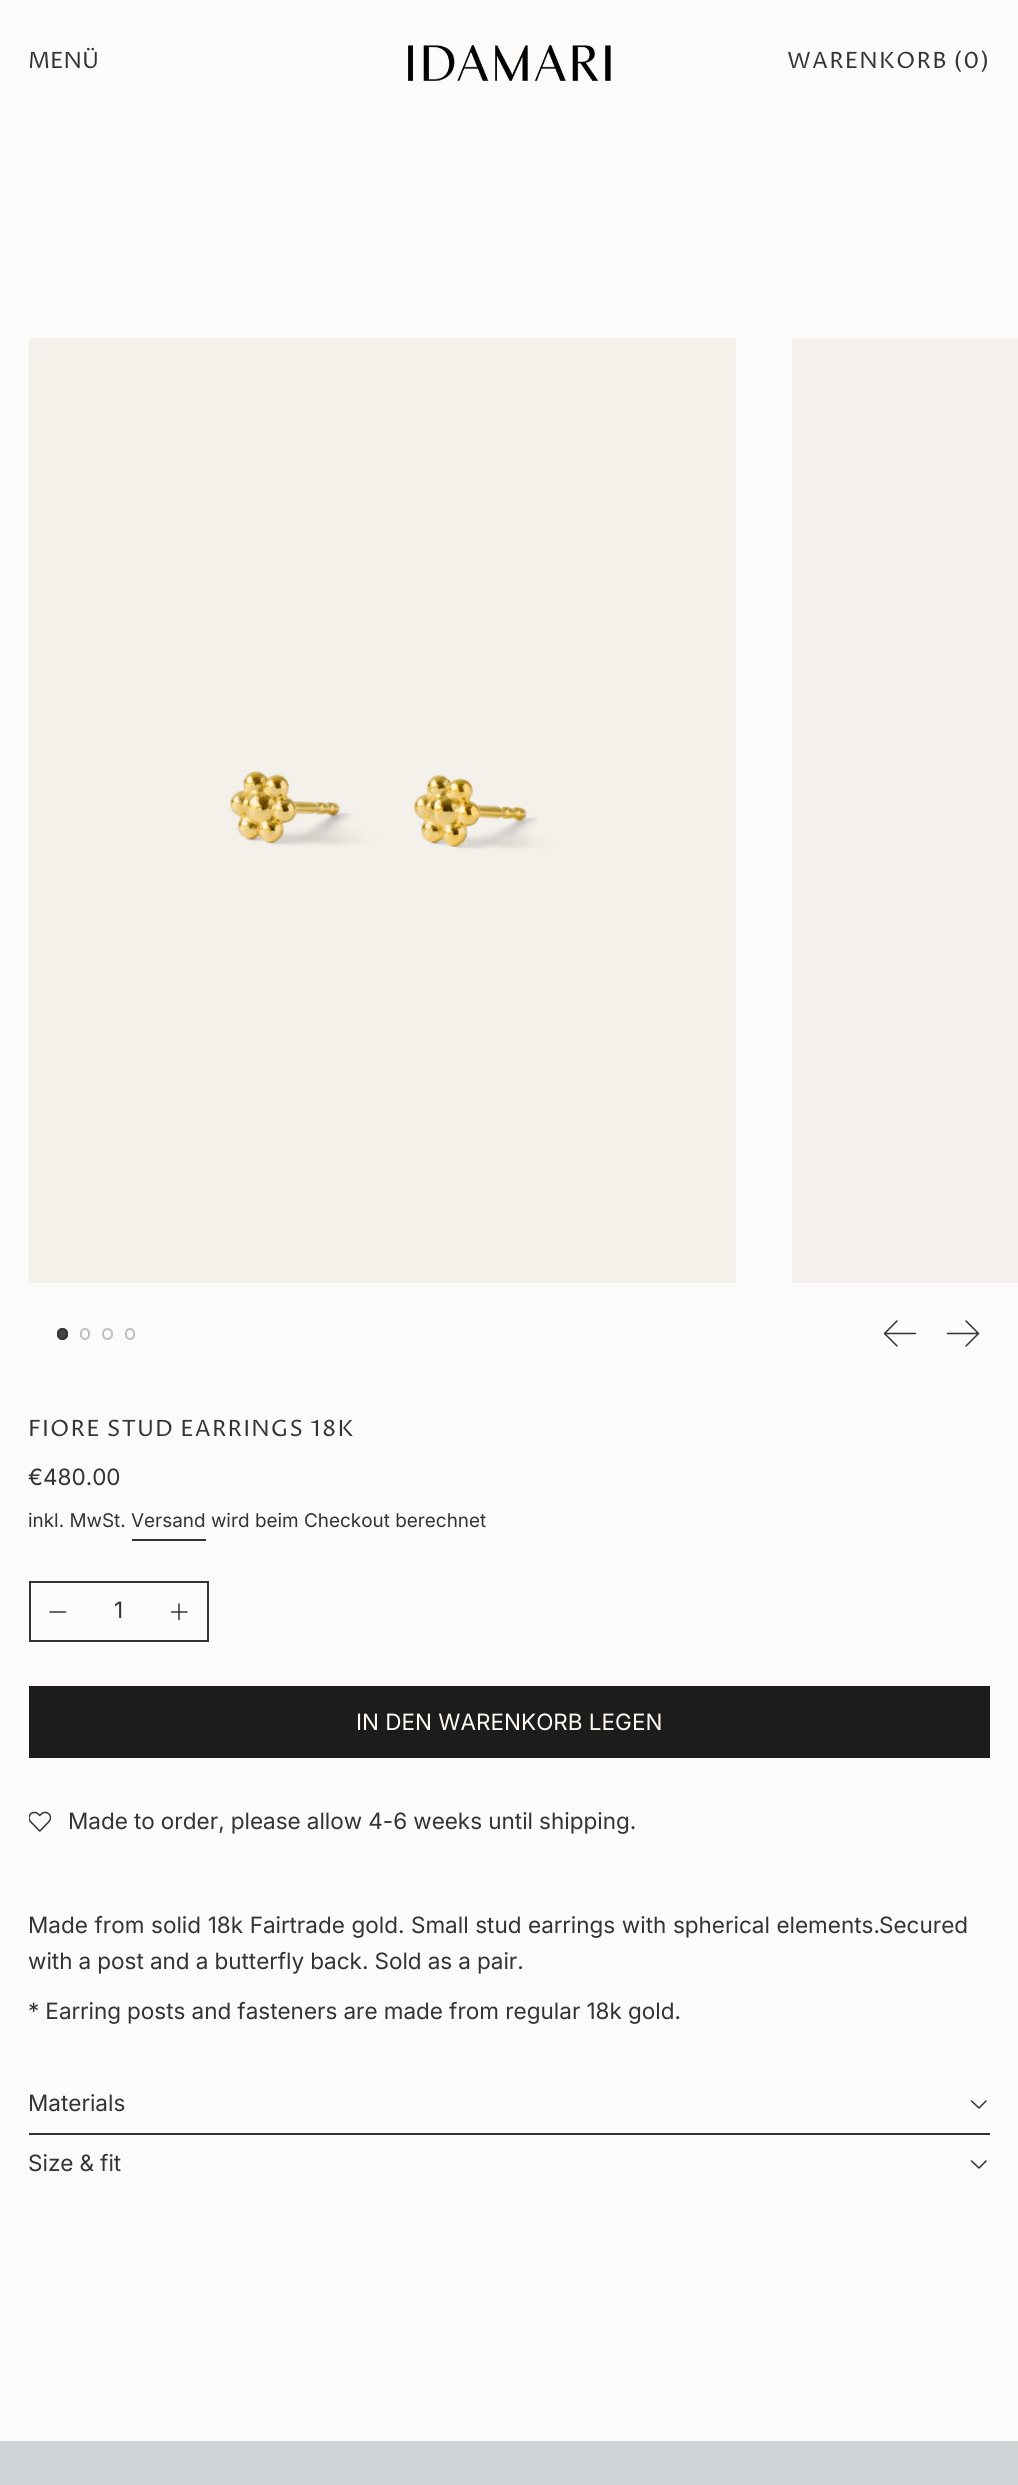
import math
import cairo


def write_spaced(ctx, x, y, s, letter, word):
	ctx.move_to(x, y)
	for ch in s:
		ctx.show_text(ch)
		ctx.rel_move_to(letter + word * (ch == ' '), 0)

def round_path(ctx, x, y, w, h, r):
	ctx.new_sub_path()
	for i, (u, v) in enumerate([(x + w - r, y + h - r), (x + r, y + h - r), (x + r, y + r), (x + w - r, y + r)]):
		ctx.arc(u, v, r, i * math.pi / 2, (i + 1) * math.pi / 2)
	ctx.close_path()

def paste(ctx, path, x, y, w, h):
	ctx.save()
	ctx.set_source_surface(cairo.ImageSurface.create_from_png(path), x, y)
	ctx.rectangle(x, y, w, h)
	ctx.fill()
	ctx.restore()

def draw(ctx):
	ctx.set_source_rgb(0.988, 0.984, 0.976)
	ctx.paint()
	ctx.select_font_face('Proza Libre')
	ctx.set_font_size(22.5)
	ctx.set_source_rgb(0.2, 0.2, 0.2)
	ctx.move_to(28, 68)
	ctx.show_text('MENÜ')
	paste(ctx, 'media/1.png', 408, 45, 203, 36)
	write_spaced(ctx, 787, 68, 'WARENKORB (0)', 1.1, 0)
	paste(ctx, 'media/2.png', 28, 338, 709, 945)
	ctx.set_source_rgb(0.961, 0.945, 0.933)
	ctx.rectangle(792, 338, 226, 945)
	ctx.fill()
	ctx.set_source_rgb(0.278, 0.278, 0.278)
	round_path(ctx, 57, 1328, 11, 12, 5.5)
	ctx.fill()
	round_path(ctx, 58, 1329, 9, 10, 4.5)
	ctx.set_source_rgba(0.2, 0.2, 0.2, 0.9)
	ctx.stroke()
	round_path(ctx, 81, 1329, 8, 10, 4)
	ctx.set_source_rgb(0.753, 0.749, 0.745)
	ctx.stroke()
	round_path(ctx, 103, 1329, 9, 10, 4.5)
	ctx.stroke()
	round_path(ctx, 126, 1329, 8, 10, 4)
	ctx.stroke()
	ctx.new_path()
	ctx.move_to(915.5, 1333.5)
	ctx.line_to(884.5, 1333.5)
	ctx.move_to(897, 1321)
	ctx.line_to(884.5, 1333.5)
	ctx.line_to(897, 1346)
	ctx.set_source_rgb(0.2, 0.2, 0.2)
	ctx.set_line_width(1.5)
	ctx.set_line_cap(cairo.LINE_CAP_ROUND)
	ctx.set_line_join(cairo.LINE_JOIN_ROUND)
	ctx.stroke()
	ctx.new_path()
	ctx.move_to(947.5, 1333.5)
	ctx.line_to(978.5, 1333.5)
	ctx.move_to(966, 1321)
	ctx.line_to(978.5, 1333.5)
	ctx.line_to(966, 1346)
	ctx.stroke()
	write_spaced(ctx, 28, 1436, 'FIORE STUD EARRINGS 18K', 1.1, 0)
	ctx.select_font_face('Inter')
	ctx.move_to(28, 1485)
	ctx.show_text('€480.00')
	ctx.set_font_size(18.9)
	ctx.move_to(28, 1527)
	ctx.show_text('inkl. MwSt. Versand wird beim Checkout berechnet')
	ctx.rectangle(132, 1539, 74, 2)
	ctx.rectangle(29, 1581, 180, 2)
	ctx.rectangle(29, 1640, 121, 2)
	ctx.rectangle(29, 1581, 2, 60)
	ctx.fill()
	ctx.new_path()
	ctx.move_to(50, 1612)
	ctx.line_to(65.5, 1612)
	ctx.stroke()
	ctx.set_font_size(22.5)
	ctx.move_to(114, 1618)
	ctx.show_text('1')
	ctx.rectangle(207, 1581, 2, 60)
	ctx.fill()
	ctx.rectangle(150, 1640, 59, 2)
	ctx.fill()
	ctx.new_path()
	ctx.move_to(171.5, 1612)
	ctx.line_to(187, 1612)
	ctx.move_to(179, 1604)
	ctx.line_to(179, 1619.5)
	ctx.stroke()
	ctx.set_source_rgb(0.11, 0.11, 0.11)
	ctx.rectangle(29, 1686, 961, 72)
	ctx.fill()
	ctx.set_source_rgb(1, 0.98, 0.949)
	ctx.move_to(356, 1730)
	ctx.show_text('IN DEN WARENKORB LEGEN')
	paste(ctx, 'media/3.png', 29, 1811, 22, 21)
	ctx.set_source_rgb(0.2, 0.2, 0.2)
	write_spaced(ctx, 68, 1829, 'Made to order, please allow 4-6 weeks until shipping.', 0, -0.25)
	write_spaced(ctx, 28, 1933, 'Made from solid 18k Fairtrade gold. Small stud earrings with spherical elements.', 0, 0.25)
	ctx.move_to(879, 1933)
	ctx.show_text('Secured')
	write_spaced(ctx, 28, 1969, 'with a post and a butterfly back. Sold as a pair.', 0, -0.25)
	write_spaced(ctx, 28, 2019, '* Earring posts and fasteners are made from regular 18k gold.', 0, -0.25)
	ctx.move_to(28, 2111)
	ctx.show_text('Materials')
	ctx.new_path()
	ctx.move_to(986, 2101)
	ctx.line_to(979, 2108)
	ctx.line_to(971.5, 2101)
	ctx.stroke()
	ctx.rectangle(29, 2133, 961, 2)
	ctx.fill()
	write_spaced(ctx, 28, 2171, 'Size & fit', 0, -0.25)
	ctx.new_path()
	ctx.move_to(986, 2161)
	ctx.line_to(979, 2168)
	ctx.line_to(971.5, 2161)
	ctx.stroke()
	ctx.set_source_rgb(0.82, 0.835, 0.847)
	ctx.rectangle(0, 2441, 1018, 44)
	ctx.fill()


surface = cairo.ImageSurface(cairo.FORMAT_RGB24, 1018, 2485)
ctx = cairo.Context(surface)
options = cairo.FontOptions()
options.set_hint_metrics(cairo.HINT_METRICS_OFF)
options.set_hint_style(cairo.HINT_STYLE_NONE)
ctx.set_font_options(options)
ctx.set_miter_limit(4)
draw(ctx)
surface.write_to_png('image.png')
